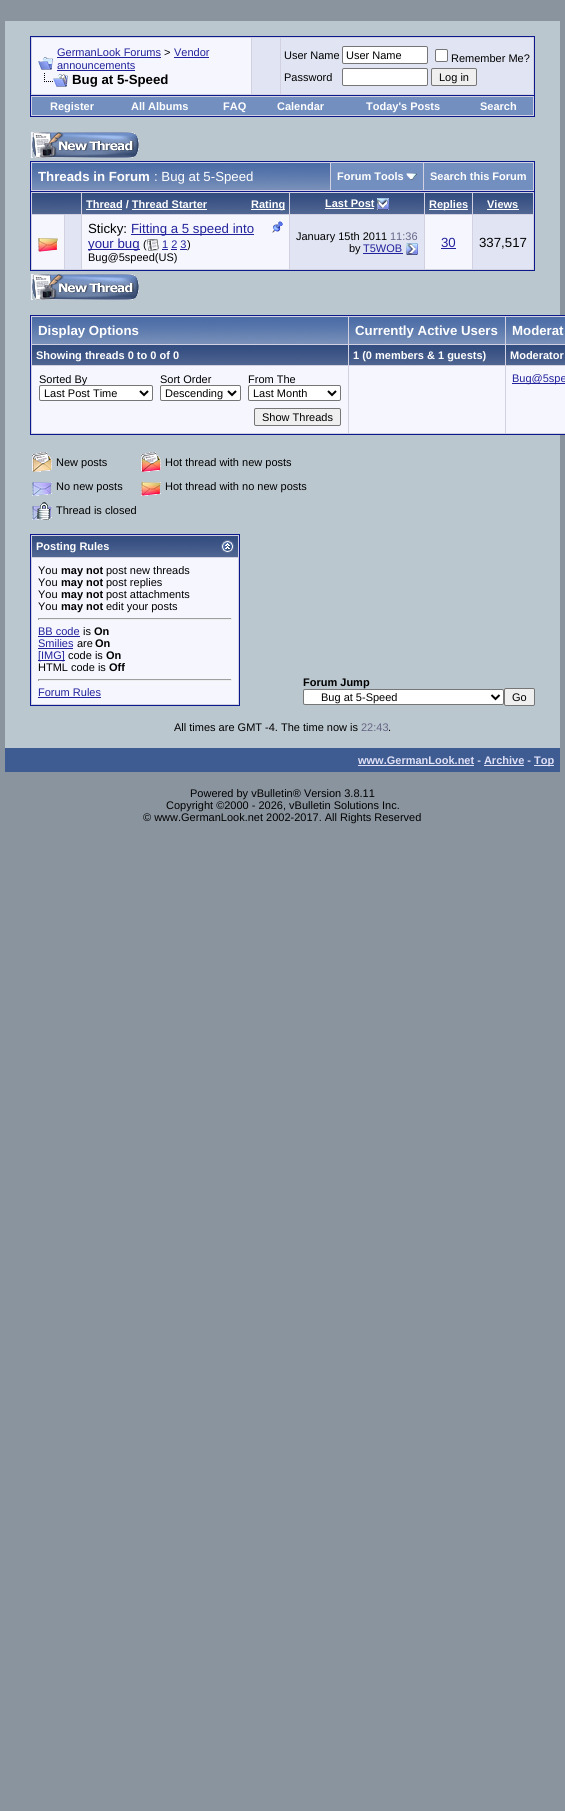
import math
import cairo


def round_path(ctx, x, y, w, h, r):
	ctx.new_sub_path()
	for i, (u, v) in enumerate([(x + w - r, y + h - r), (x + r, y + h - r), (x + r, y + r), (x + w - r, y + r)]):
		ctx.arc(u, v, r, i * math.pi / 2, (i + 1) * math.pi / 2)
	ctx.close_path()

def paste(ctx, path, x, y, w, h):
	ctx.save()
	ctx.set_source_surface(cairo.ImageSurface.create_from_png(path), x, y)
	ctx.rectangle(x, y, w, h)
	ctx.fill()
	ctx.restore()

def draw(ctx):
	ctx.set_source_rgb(0.541, 0.58, 0.62)
	ctx.paint()
	ctx.set_source_rgb(0.733, 0.78, 0.808)
	ctx.rectangle(5, 21, 555, 727)
	ctx.fill()
	ctx.set_source_rgb(0.82, 0.82, 0.882)
	ctx.rectangle(30.5, 36.5, 504, 59)
	ctx.fill_preserve()
	ctx.set_source_rgb(0.043, 0.098, 0.549)
	ctx.set_line_width(1)
	ctx.stroke()
	ctx.set_source_rgb(0.961, 0.961, 1)
	ctx.rectangle(32, 38, 219, 56)
	ctx.fill()
	paste(ctx, 'media/1.png', 38, 57, 15, 13)
	ctx.select_font_face('Liberation Sans')
	ctx.set_font_size(11)
	ctx.set_source_rgb(0.133, 0.133, 0.612)
	ctx.move_to(57, 56)
	ctx.show_text('GermanLook Forums')
	ctx.rectangle(57, 57, 104, 1)
	ctx.fill()
	ctx.set_source_rgb(0, 0, 0)
	ctx.move_to(164, 56)
	ctx.show_text('>')
	ctx.set_source_rgb(0.133, 0.133, 0.612)
	ctx.move_to(174, 56)
	ctx.show_text('Vendor')
	ctx.rectangle(174, 57, 35, 1)
	ctx.fill()
	ctx.move_to(57, 69)
	ctx.show_text('announcements')
	ctx.rectangle(57, 70, 78, 1)
	ctx.fill()
	paste(ctx, 'media/2.png', 44, 73, 24, 14)
	ctx.select_font_face('Liberation Sans', cairo.FONT_SLANT_NORMAL, cairo.FONT_WEIGHT_BOLD)
	ctx.set_font_size(13.25)
	ctx.set_source_rgb(0, 0, 0)
	ctx.move_to(72, 84)
	ctx.show_text('Bug at 5-Speed')
	ctx.set_source_rgb(0.882, 0.894, 0.949)
	ctx.rectangle(252, 38, 28, 56)
	ctx.fill()
	ctx.rectangle(281, 38, 252, 56)
	ctx.fill()
	ctx.select_font_face('Liberation Sans')
	ctx.set_font_size(11)
	ctx.set_source_rgb(0, 0, 0)
	ctx.move_to(284, 59)
	ctx.show_text('User Name')
	ctx.set_source_rgb(1, 1, 1)
	round_path(ctx, 342.5, 46.5, 85, 17, 1.5)
	ctx.fill_preserve()
	ctx.set_source_rgb(0.463, 0.463, 0.463)
	ctx.stroke()
	ctx.set_source_rgb(0, 0, 0)
	ctx.move_to(346, 59)
	ctx.show_text('User Name')
	ctx.set_source_rgb(1, 1, 1)
	round_path(ctx, 435.5, 49.5, 12, 12, 1.5)
	ctx.fill_preserve()
	ctx.set_source_rgb(0.463, 0.463, 0.463)
	ctx.stroke()
	ctx.set_source_rgb(0, 0, 0)
	ctx.move_to(451, 62)
	ctx.show_text('Remember Me?')
	ctx.move_to(284, 81)
	ctx.show_text('Password')
	ctx.set_source_rgb(1, 1, 1)
	round_path(ctx, 342.5, 68.5, 85, 17, 1.5)
	ctx.fill_preserve()
	ctx.set_source_rgb(0.463, 0.463, 0.463)
	ctx.stroke()
	ctx.set_source_rgb(0.937, 0.937, 0.937)
	round_path(ctx, 431.5, 68.5, 45, 17, 1.5)
	ctx.fill_preserve()
	ctx.set_source_rgb(0.463, 0.463, 0.463)
	ctx.stroke()
	ctx.set_source_rgb(0, 0, 0)
	ctx.move_to(439, 81)
	ctx.show_text('Log in')
	ctx.set_source_rgb(0.82, 0.82, 0.882)
	ctx.rectangle(31, 96, 503, 20)
	ctx.fill()
	ctx.set_source_rgb(0.043, 0.098, 0.549)
	ctx.rectangle(534, 96, 1, 21)
	ctx.rectangle(30, 116, 505, 1)
	ctx.rectangle(30, 96, 1, 21)
	ctx.fill()
	ctx.set_source_rgb(0.451, 0.561, 0.749)
	ctx.rectangle(32, 97, 501, 18)
	ctx.fill()
	ctx.select_font_face('Liberation Sans', cairo.FONT_SLANT_NORMAL, cairo.FONT_WEIGHT_BOLD)
	ctx.set_source_rgb(1, 1, 1)
	for x, y, s in [
		(50, 110, 'Register'),
		(131, 110, 'All Albums'),
		(223, 110, 'FAQ'),
		(277, 110, 'Calendar'),
		(366, 110, 'Today\'s Posts'),
		(480, 110, 'Search'),
	]:
		ctx.move_to(x, y)
		ctx.show_text(s)
	paste(ctx, 'media/3.png', 31, 132, 108, 26)
	ctx.set_source_rgb(0.82, 0.82, 0.882)
	ctx.rectangle(31, 162, 503, 29)
	ctx.fill()
	ctx.set_source_rgb(0.043, 0.098, 0.549)
	ctx.rectangle(30, 161, 505, 1)
	ctx.rectangle(534, 161, 1, 30)
	ctx.rectangle(30, 161, 1, 30)
	ctx.fill()
	paste(ctx, 'media/4.png', 32, 163, 298, 27)
	ctx.set_font_size(13.25)
	ctx.set_source_rgb(1, 1, 1)
	ctx.move_to(38, 181)
	ctx.show_text('Threads in Forum')
	ctx.select_font_face('Liberation Sans')
	ctx.move_to(154, 181)
	ctx.show_text(': Bug at 5-Speed')
	ctx.set_source_rgb(0.451, 0.561, 0.749)
	ctx.rectangle(331, 163, 92, 27)
	ctx.fill()
	ctx.select_font_face('Liberation Sans', cairo.FONT_SLANT_NORMAL, cairo.FONT_WEIGHT_BOLD)
	ctx.set_font_size(11)
	ctx.set_source_rgb(1, 1, 1)
	ctx.move_to(337, 180)
	ctx.show_text('Forum Tools')
	paste(ctx, 'media/5.png', 406, 173, 11, 7)
	ctx.set_source_rgb(0.451, 0.561, 0.749)
	ctx.rectangle(424, 163, 109, 27)
	ctx.fill()
	ctx.set_source_rgb(1, 1, 1)
	ctx.move_to(430, 180)
	ctx.show_text('Search this Forum')
	ctx.set_source_rgb(0.82, 0.82, 0.882)
	ctx.rectangle(30.5, 191.5, 504, 79)
	ctx.fill_preserve()
	ctx.set_source_rgb(0.043, 0.098, 0.549)
	ctx.stroke()
	paste(ctx, 'media/6.png', 32, 193, 49, 21)
	paste(ctx, 'media/7.png', 82, 193, 207, 21)
	ctx.set_source_rgb(1, 1, 1)
	ctx.move_to(86, 208)
	ctx.show_text('Thread / Thread Starter')
	ctx.rectangle(86, 209, 36, 1)
	ctx.fill()
	ctx.rectangle(251, 209, 34, 1)
	ctx.fill()
	ctx.move_to(251, 208)
	ctx.show_text('Rating')
	ctx.rectangle(132, 209, 75, 1)
	ctx.fill()
	paste(ctx, 'media/8.png', 290, 193, 134, 21)
	ctx.move_to(325, 207)
	ctx.show_text('Last Post')
	ctx.rectangle(325, 208, 49, 1)
	ctx.fill()
	paste(ctx, 'media/9.png', 377, 198, 12, 12)
	paste(ctx, 'media/10.png', 425, 193, 47, 21)
	ctx.rectangle(429, 209, 39, 1)
	ctx.fill()
	ctx.move_to(429, 208)
	ctx.show_text('Replies')
	paste(ctx, 'media/11.png', 473, 193, 60, 21)
	ctx.move_to(487, 208)
	ctx.show_text('Views')
	ctx.rectangle(487, 209, 32, 1)
	ctx.fill()
	ctx.set_source_rgb(0.961, 0.961, 1)
	ctx.rectangle(32, 215, 32, 54)
	ctx.fill()
	paste(ctx, 'media/12.png', 38, 238, 20, 14)
	ctx.set_source_rgb(0.882, 0.894, 0.949)
	ctx.rectangle(65, 215, 16, 54)
	ctx.fill()
	ctx.set_source_rgb(0.961, 0.961, 1)
	ctx.rectangle(82, 215, 207, 54)
	ctx.fill()
	ctx.select_font_face('Liberation Sans')
	ctx.set_font_size(13.25)
	ctx.set_source_rgb(0, 0, 0)
	ctx.move_to(88, 233)
	ctx.show_text('Sticky:')
	ctx.set_source_rgb(0.133, 0.133, 0.612)
	ctx.rectangle(131, 234, 123, 1)
	ctx.fill()
	ctx.move_to(131, 233)
	ctx.show_text('Fitting a 5 speed into')
	paste(ctx, 'media/13.png', 272, 221, 11, 12)
	ctx.rectangle(88, 249, 52, 1)
	ctx.fill()
	ctx.move_to(88, 248)
	ctx.show_text('your bug')
	ctx.set_font_size(11)
	ctx.set_source_rgb(0, 0, 0)
	ctx.move_to(143, 248)
	ctx.show_text('(')
	paste(ctx, 'media/14.png', 147, 239, 12, 12)
	ctx.set_source_rgb(0.133, 0.133, 0.612)
	ctx.move_to(162, 248)
	ctx.show_text('1 2 3')
	ctx.rectangle(162, 249, 6, 1)
	ctx.rectangle(171, 249, 6, 1)
	ctx.rectangle(180, 249, 7, 1)
	ctx.fill()
	ctx.set_source_rgb(0, 0, 0)
	ctx.move_to(187, 248)
	ctx.show_text(')')
	ctx.move_to(88, 261)
	ctx.show_text('Bug@5speed(US)')
	ctx.set_source_rgb(0.882, 0.894, 0.949)
	ctx.rectangle(290, 215, 134, 54)
	ctx.fill()
	ctx.set_source_rgb(0, 0, 0)
	ctx.move_to(296, 240)
	ctx.show_text('January 15th 2011')
	ctx.set_source_rgb(0.4, 0.4, 0.525)
	ctx.move_to(390, 240)
	ctx.show_text('11:36')
	ctx.set_source_rgb(0, 0, 0)
	ctx.move_to(349, 252)
	ctx.show_text('by')
	ctx.set_source_rgb(0.133, 0.133, 0.612)
	ctx.move_to(363, 252)
	ctx.show_text('T5WOB')
	ctx.rectangle(363, 253, 40, 1)
	ctx.fill()
	paste(ctx, 'media/15.png', 406, 243, 12, 12)
	ctx.set_source_rgb(0.961, 0.961, 1)
	ctx.rectangle(425, 215, 47, 54)
	ctx.fill()
	ctx.set_font_size(13.25)
	ctx.set_source_rgb(0.133, 0.133, 0.612)
	ctx.move_to(441, 247)
	ctx.show_text('30')
	ctx.rectangle(441, 248, 15, 1)
	ctx.fill()
	ctx.set_source_rgb(0.882, 0.894, 0.949)
	ctx.rectangle(473, 215, 60, 54)
	ctx.fill()
	ctx.set_source_rgb(0, 0, 0)
	ctx.move_to(479, 247)
	ctx.show_text('337,517')
	paste(ctx, 'media/3.png', 31, 274, 108, 26)
	ctx.set_source_rgb(0.82, 0.82, 0.882)
	ctx.rectangle(30.5, 315.5, 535, 119)
	ctx.fill_preserve()
	ctx.set_source_rgb(0.043, 0.098, 0.549)
	ctx.stroke()
	paste(ctx, 'media/16.png', 32, 317, 316, 27)
	ctx.select_font_face('Liberation Sans', cairo.FONT_SLANT_NORMAL, cairo.FONT_WEIGHT_BOLD)
	ctx.set_source_rgb(1, 1, 1)
	ctx.move_to(38, 335)
	ctx.show_text('Display Options')
	paste(ctx, 'media/17.png', 349, 317, 156, 27)
	ctx.move_to(355, 335)
	ctx.show_text('Currently Active Users')
	paste(ctx, 'media/18.png', 506, 317, 59, 27)
	ctx.move_to(512, 335)
	ctx.show_text('Moderat')
	paste(ctx, 'media/19.png', 32, 345, 316, 20)
	ctx.set_font_size(11)
	ctx.move_to(36, 359)
	ctx.show_text('Showing threads 0 to 0 of 0')
	paste(ctx, 'media/20.png', 349, 345, 156, 20)
	ctx.move_to(353, 359)
	ctx.show_text('1 (0 members & 1 guests)')
	paste(ctx, 'media/21.png', 506, 345, 59, 20)
	ctx.move_to(510, 359)
	ctx.show_text('Moderator')
	ctx.set_source_rgb(0.961, 0.961, 1)
	ctx.rectangle(32, 366, 316, 67)
	ctx.fill()
	ctx.select_font_face('Liberation Sans')
	ctx.set_source_rgb(0, 0, 0)
	ctx.move_to(39, 383)
	ctx.show_text('Sorted By')
	ctx.set_source_rgb(1, 1, 1)
	round_path(ctx, 39.5, 385.5, 113, 15, 1.5)
	ctx.fill_preserve()
	ctx.set_source_rgb(0.463, 0.463, 0.463)
	ctx.stroke()
	ctx.new_path()
	ctx.move_to(140, 391)
	ctx.line_to(144, 395)
	ctx.line_to(148, 391)
	ctx.set_source_rgb(0, 0, 0)
	ctx.set_line_width(2)
	ctx.stroke()
	ctx.move_to(44, 397)
	ctx.show_text('Last Post Time')
	ctx.move_to(160, 383)
	ctx.show_text('Sort Order')
	ctx.set_source_rgb(1, 1, 1)
	round_path(ctx, 160.5, 385.5, 80, 15, 1.5)
	ctx.fill_preserve()
	ctx.set_source_rgb(0.463, 0.463, 0.463)
	ctx.set_line_width(1)
	ctx.stroke()
	ctx.new_path()
	ctx.move_to(228, 391)
	ctx.line_to(232, 395)
	ctx.line_to(236, 391)
	ctx.set_source_rgb(0, 0, 0)
	ctx.set_line_width(2)
	ctx.stroke()
	ctx.move_to(165, 397)
	ctx.show_text('Descending')
	ctx.move_to(248, 383)
	ctx.show_text('From The')
	ctx.set_source_rgb(1, 1, 1)
	round_path(ctx, 248.5, 385.5, 92, 15, 1.5)
	ctx.fill_preserve()
	ctx.set_source_rgb(0.463, 0.463, 0.463)
	ctx.set_line_width(1)
	ctx.stroke()
	ctx.new_path()
	ctx.move_to(328, 391)
	ctx.line_to(332, 395)
	ctx.line_to(336, 391)
	ctx.set_source_rgb(0, 0, 0)
	ctx.set_line_width(2)
	ctx.stroke()
	ctx.move_to(253, 397)
	ctx.show_text('Last Month')
	ctx.set_source_rgb(0.937, 0.937, 0.937)
	round_path(ctx, 254.5, 408.5, 86, 17, 1.5)
	ctx.fill_preserve()
	ctx.set_source_rgb(0.463, 0.463, 0.463)
	ctx.set_line_width(1)
	ctx.stroke()
	ctx.set_source_rgb(0, 0, 0)
	ctx.move_to(262, 421)
	ctx.show_text('Show Threads')
	ctx.set_source_rgb(0.961, 0.961, 1)
	ctx.rectangle(349, 366, 156, 67)
	ctx.rectangle(506, 366, 59, 67)
	ctx.fill()
	ctx.set_source_rgb(0.133, 0.133, 0.612)
	ctx.rectangle(512, 383, 53, 1)
	ctx.fill()
	ctx.move_to(512, 382)
	ctx.show_text('Bug@5spe')
	paste(ctx, 'media/22.png', 32, 452, 20, 20)
	ctx.set_source_rgb(0, 0, 0)
	ctx.move_to(56, 466)
	ctx.show_text('New posts')
	paste(ctx, 'media/23.png', 141, 452, 20, 20)
	ctx.move_to(165, 466)
	ctx.show_text('Hot thread with new posts')
	paste(ctx, 'media/24.png', 32, 482, 20, 14)
	ctx.move_to(56, 490)
	ctx.show_text('No new posts')
	paste(ctx, 'media/25.png', 141, 482, 20, 14)
	ctx.move_to(165, 490)
	ctx.show_text('Hot thread with no new posts')
	paste(ctx, 'media/26.png', 32, 502, 20, 18)
	ctx.move_to(56, 514)
	ctx.show_text('Thread is closed')
	ctx.set_source_rgb(0.82, 0.82, 0.882)
	ctx.rectangle(30.5, 534.5, 209, 171)
	ctx.fill_preserve()
	ctx.set_source_rgb(0.043, 0.098, 0.549)
	ctx.stroke()
	paste(ctx, 'media/27.png', 32, 536, 206, 21)
	ctx.select_font_face('Liberation Sans', cairo.FONT_SLANT_NORMAL, cairo.FONT_WEIGHT_BOLD)
	ctx.set_source_rgb(1, 1, 1)
	ctx.move_to(36, 550)
	ctx.show_text('Posting Rules')
	paste(ctx, 'media/28.png', 221, 540, 13, 13)
	ctx.set_source_rgb(0.961, 0.961, 1)
	ctx.rectangle(32, 558, 206, 146)
	ctx.fill()
	ctx.select_font_face('Liberation Sans')
	ctx.set_source_rgb(0, 0, 0)
	ctx.move_to(38, 574)
	ctx.show_text('You')
	ctx.select_font_face('Liberation Sans', cairo.FONT_SLANT_NORMAL, cairo.FONT_WEIGHT_BOLD)
	ctx.move_to(61, 574)
	ctx.show_text('may not')
	ctx.select_font_face('Liberation Sans')
	ctx.move_to(106, 574)
	ctx.show_text('post new threads')
	ctx.move_to(38, 586)
	ctx.show_text('You')
	ctx.select_font_face('Liberation Sans', cairo.FONT_SLANT_NORMAL, cairo.FONT_WEIGHT_BOLD)
	ctx.move_to(61, 586)
	ctx.show_text('may not')
	ctx.select_font_face('Liberation Sans')
	ctx.move_to(106, 586)
	ctx.show_text('post replies')
	ctx.move_to(38, 598)
	ctx.show_text('You')
	ctx.select_font_face('Liberation Sans', cairo.FONT_SLANT_NORMAL, cairo.FONT_WEIGHT_BOLD)
	ctx.move_to(61, 598)
	ctx.show_text('may not')
	ctx.select_font_face('Liberation Sans')
	ctx.move_to(106, 598)
	ctx.show_text('post attachments')
	ctx.move_to(38, 610)
	ctx.show_text('You')
	ctx.select_font_face('Liberation Sans', cairo.FONT_SLANT_NORMAL, cairo.FONT_WEIGHT_BOLD)
	ctx.move_to(61, 610)
	ctx.show_text('may not')
	ctx.select_font_face('Liberation Sans')
	ctx.move_to(106, 610)
	ctx.show_text('edit your posts')
	ctx.set_source_rgb(0.624, 0.624, 0.624)
	ctx.rectangle(38, 618, 194, 1)
	ctx.fill()
	ctx.set_source_rgb(0.933, 0.933, 0.933)
	ctx.rectangle(231, 618, 1, 2)
	ctx.rectangle(38, 619, 194, 1)
	ctx.fill()
	ctx.set_source_rgb(0.624, 0.624, 0.624)
	ctx.rectangle(38, 618, 1, 2)
	ctx.fill()
	ctx.set_source_rgb(0.133, 0.133, 0.612)
	ctx.move_to(38, 635)
	ctx.show_text('BB code')
	ctx.rectangle(38, 636, 42, 1)
	ctx.fill()
	ctx.set_source_rgb(0, 0, 0)
	ctx.move_to(83, 635)
	ctx.show_text('is')
	ctx.select_font_face('Liberation Sans', cairo.FONT_SLANT_NORMAL, cairo.FONT_WEIGHT_BOLD)
	ctx.move_to(94, 635)
	ctx.show_text('On')
	ctx.select_font_face('Liberation Sans')
	ctx.set_source_rgb(0.133, 0.133, 0.612)
	ctx.move_to(38, 647)
	ctx.show_text('Smilies')
	ctx.rectangle(38, 648, 35, 1)
	ctx.fill()
	ctx.set_source_rgb(0, 0, 0)
	ctx.move_to(77, 647)
	ctx.show_text('are')
	ctx.select_font_face('Liberation Sans', cairo.FONT_SLANT_NORMAL, cairo.FONT_WEIGHT_BOLD)
	ctx.move_to(95, 647)
	ctx.show_text('On')
	ctx.set_source_rgb(0.133, 0.133, 0.612)
	ctx.rectangle(38, 660, 27, 1)
	ctx.fill()
	ctx.select_font_face('Liberation Sans')
	ctx.move_to(38, 659)
	ctx.show_text('[IMG]')
	ctx.set_source_rgb(0, 0, 0)
	ctx.move_to(68, 659)
	ctx.show_text('code is')
	ctx.select_font_face('Liberation Sans', cairo.FONT_SLANT_NORMAL, cairo.FONT_WEIGHT_BOLD)
	ctx.move_to(106, 659)
	ctx.show_text('On')
	ctx.select_font_face('Liberation Sans')
	ctx.move_to(38, 671)
	ctx.show_text('HTML code is')
	ctx.select_font_face('Liberation Sans', cairo.FONT_SLANT_NORMAL, cairo.FONT_WEIGHT_BOLD)
	ctx.move_to(109, 671)
	ctx.show_text('Off')
	ctx.set_source_rgb(0.624, 0.624, 0.624)
	ctx.rectangle(38, 679, 194, 1)
	ctx.fill()
	ctx.set_source_rgb(0.933, 0.933, 0.933)
	ctx.rectangle(231, 679, 1, 2)
	ctx.rectangle(38, 680, 194, 1)
	ctx.fill()
	ctx.set_source_rgb(0.624, 0.624, 0.624)
	ctx.rectangle(38, 679, 1, 2)
	ctx.fill()
	ctx.select_font_face('Liberation Sans')
	ctx.set_source_rgb(0.133, 0.133, 0.612)
	ctx.move_to(38, 696)
	ctx.show_text('Forum Rules')
	ctx.rectangle(38, 697, 63, 1)
	ctx.fill()
	ctx.select_font_face('Liberation Sans', cairo.FONT_SLANT_NORMAL, cairo.FONT_WEIGHT_BOLD)
	ctx.set_source_rgb(0, 0, 0)
	ctx.move_to(303, 686)
	ctx.show_text('Forum Jump')
	ctx.set_source_rgb(1, 1, 1)
	round_path(ctx, 303.5, 689.5, 200, 15, 1.5)
	ctx.fill_preserve()
	ctx.set_source_rgb(0.463, 0.463, 0.463)
	ctx.stroke()
	ctx.new_path()
	ctx.move_to(491.5, 695)
	ctx.line_to(495.5, 699)
	ctx.line_to(499.5, 695)
	ctx.set_source_rgb(0, 0, 0)
	ctx.set_line_width(2)
	ctx.stroke()
	ctx.select_font_face('Liberation Sans')
	ctx.move_to(321, 701)
	ctx.show_text('Bug at 5-Speed')
	ctx.set_source_rgb(0.937, 0.937, 0.937)
	round_path(ctx, 504.5, 688.5, 30, 17, 1.5)
	ctx.fill_preserve()
	ctx.set_source_rgb(0.463, 0.463, 0.463)
	ctx.set_line_width(1)
	ctx.stroke()
	ctx.set_source_rgb(0, 0, 0)
	ctx.move_to(512, 701)
	ctx.show_text('Go')
	ctx.move_to(174, 731)
	ctx.show_text('All times are GMT -4. The time now is')
	ctx.set_source_rgb(0.4, 0.4, 0.525)
	ctx.move_to(361, 731)
	ctx.show_text('22:43')
	ctx.set_source_rgb(0, 0, 0)
	ctx.move_to(388, 731)
	ctx.show_text('.')
	ctx.set_source_rgb(0.243, 0.361, 0.573)
	ctx.rectangle(5, 748, 555, 24)
	ctx.fill()
	ctx.select_font_face('Liberation Sans', cairo.FONT_SLANT_NORMAL, cairo.FONT_WEIGHT_BOLD)
	ctx.set_source_rgb(0.878, 0.878, 0.965)
	ctx.move_to(358, 764)
	ctx.show_text('www.GermanLook.net - Archive -')
	ctx.rectangle(358, 765, 116, 1)
	ctx.rectangle(484, 765, 40, 1)
	ctx.rectangle(534, 765, 20, 1)
	ctx.fill()
	ctx.move_to(534, 764)
	ctx.show_text('Top')
	ctx.select_font_face('Liberation Sans')
	ctx.set_source_rgb(0, 0, 0)
	for x, y, s in [
		(190, 797, 'Powered by vBulletin® Version 3.8.11'),
		(166, 809, 'Copyright ©2000 - 2026, vBulletin Solutions Inc.'),
		(143, 821, '© www.GermanLook.net 2002-2017. All Rights Reserved'),
	]:
		ctx.move_to(x, y)
		ctx.show_text(s)


surface = cairo.ImageSurface(cairo.FORMAT_RGB24, 565, 1811)
ctx = cairo.Context(surface)
options = cairo.FontOptions()
options.set_hint_metrics(cairo.HINT_METRICS_OFF)
options.set_hint_style(cairo.HINT_STYLE_NONE)
ctx.set_font_options(options)
ctx.set_miter_limit(4)
draw(ctx)
surface.write_to_png('image.png')
